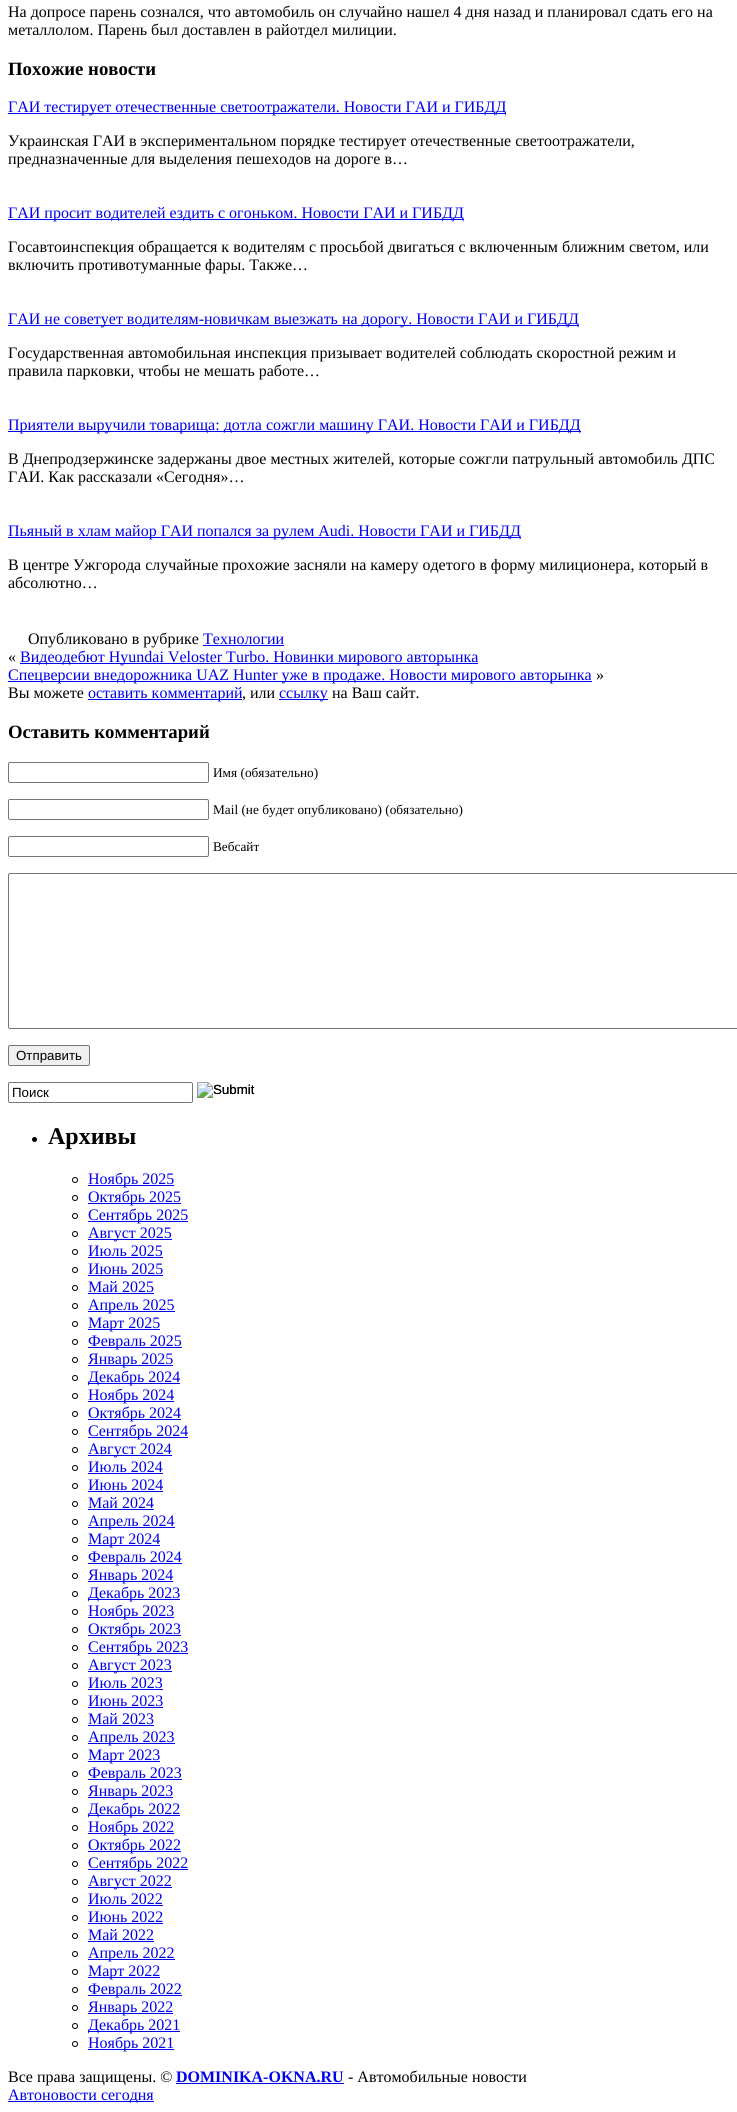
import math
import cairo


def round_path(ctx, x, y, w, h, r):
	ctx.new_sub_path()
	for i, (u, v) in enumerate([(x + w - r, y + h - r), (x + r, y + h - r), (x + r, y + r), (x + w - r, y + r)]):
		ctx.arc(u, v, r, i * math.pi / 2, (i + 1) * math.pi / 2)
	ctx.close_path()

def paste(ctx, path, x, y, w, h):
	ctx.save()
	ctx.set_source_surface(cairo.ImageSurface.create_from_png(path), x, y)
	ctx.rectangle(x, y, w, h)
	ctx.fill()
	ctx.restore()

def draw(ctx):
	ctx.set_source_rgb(1, 1, 1)
	ctx.paint()
	ctx.select_font_face('Liberation Serif')
	ctx.set_font_size(16)
	ctx.set_source_rgb(0, 0, 0)
	ctx.move_to(8, 17)
	ctx.show_text('На допросе парень сознался, что автомобиль он случайно нашел 4 дня назад и планировал сдать его на')
	ctx.move_to(8, 35)
	ctx.show_text('металлолом. Парень был доставлен в райотдел милиции.')
	ctx.select_font_face('Liberation Serif', cairo.FONT_SLANT_NORMAL, cairo.FONT_WEIGHT_BOLD)
	ctx.set_font_size(18.75)
	ctx.move_to(8, 75)
	ctx.show_text('Похожие новости')
	ctx.set_source_rgb(0, 0, 0.933)
	ctx.rectangle(8, 113, 498, 1)
	ctx.fill()
	ctx.select_font_face('Liberation Serif')
	ctx.set_font_size(16)
	ctx.move_to(8, 112)
	ctx.show_text('ГАИ тестирует отечественные светоотражатели. Новости ГАИ и ГИБДД')
	ctx.set_source_rgb(0, 0, 0)
	ctx.move_to(8, 146)
	ctx.show_text('Украинская ГАИ в экспериментальном порядке тестирует отечественные светоотражатели,')
	ctx.move_to(8, 164)
	ctx.show_text('предназначенные для выделения пешеходов на дороге в…')
	ctx.set_source_rgb(0, 0, 0.933)
	ctx.rectangle(8, 219, 456, 1)
	ctx.fill()
	ctx.move_to(8, 218)
	ctx.show_text('ГАИ просит водителей ездить с огоньком. Новости ГАИ и ГИБДД')
	ctx.set_source_rgb(0, 0, 0)
	ctx.move_to(8, 252)
	ctx.show_text('Госавтоинспекция обращается к водителям с просьбой двигаться с включенным ближним светом, или')
	ctx.move_to(8, 270)
	ctx.show_text('включить противотуманные фары. Также…')
	ctx.set_source_rgb(0, 0, 0.933)
	ctx.rectangle(8, 325, 571, 1)
	ctx.fill()
	ctx.move_to(8, 324)
	ctx.show_text('ГАИ не советует водителям-новичкам выезжать на дорогу. Новости ГАИ и ГИБДД')
	ctx.set_source_rgb(0, 0, 0)
	ctx.move_to(8, 358)
	ctx.show_text('Государственная автомобильная инспекция призывает водителей соблюдать скоростной режим и')
	ctx.move_to(8, 376)
	ctx.show_text('правила парковки, чтобы не мешать работе…')
	ctx.set_source_rgb(0, 0, 0.933)
	ctx.rectangle(8, 431, 573, 1)
	ctx.fill()
	ctx.move_to(8, 430)
	ctx.show_text('Приятели выручили товарища: дотла сожгли машину ГАИ. Новости ГАИ и ГИБДД')
	ctx.set_source_rgb(0, 0, 0)
	ctx.move_to(8, 464)
	ctx.show_text('В Днепродзержинске задержаны двое местных жителей, которые сожгли патрульный автомобиль ДПС')
	ctx.move_to(8, 482)
	ctx.show_text('ГАИ. Как рассказали «Сегодня»…')
	ctx.set_source_rgb(0, 0, 0.933)
	ctx.rectangle(8, 537, 513, 1)
	ctx.fill()
	ctx.move_to(8, 536)
	ctx.show_text('Пьяный в хлам майор ГАИ попался за рулем Audi. Новости ГАИ и ГИБДД')
	ctx.set_source_rgb(0, 0, 0)
	for x, y, s in [
		(8, 570, 'В центре Ужгорода случайные прохожие засняли на камеру одетого в форму милиционера, который в'),
		(8, 588, 'абсолютно…'),
		(28, 644, 'Опубликовано в рубрике'),
	]:
		ctx.move_to(x, y)
		ctx.show_text(s)
	ctx.set_source_rgb(0, 0, 0.933)
	ctx.move_to(203, 644)
	ctx.show_text('Технологии')
	ctx.rectangle(203, 645, 81, 1)
	ctx.fill()
	ctx.set_source_rgb(0, 0, 0)
	ctx.move_to(8, 662)
	ctx.show_text('«')
	ctx.set_source_rgb(0, 0, 0.933)
	ctx.rectangle(20, 663, 458, 1)
	ctx.fill()
	ctx.move_to(20, 662)
	ctx.show_text('Видеодебют Hyundai Veloster Turbo. Новинки мирового авторынка')
	ctx.rectangle(8, 681, 584, 1)
	ctx.fill()
	ctx.move_to(8, 680)
	ctx.show_text('Спецверсии внедорожника UAZ Hunter уже в продаже. Новости мирового авторынка')
	ctx.set_source_rgb(0, 0, 0)
	ctx.move_to(596, 680)
	ctx.show_text('»')
	ctx.move_to(8, 698)
	ctx.show_text('Вы можете')
	ctx.set_source_rgb(0, 0, 0.933)
	ctx.rectangle(88, 699, 154, 1)
	ctx.fill()
	ctx.move_to(88, 698)
	ctx.show_text('оставить комментарий')
	ctx.set_source_rgb(0, 0, 0)
	ctx.move_to(242, 698)
	ctx.show_text(', или')
	ctx.set_source_rgb(0, 0, 0.933)
	ctx.rectangle(279, 699, 49, 1)
	ctx.fill()
	ctx.move_to(279, 698)
	ctx.show_text('ссылку')
	ctx.set_source_rgb(0, 0, 0)
	ctx.move_to(332, 698)
	ctx.show_text('на Ваш сайт.')
	ctx.select_font_face('Liberation Serif', cairo.FONT_SLANT_NORMAL, cairo.FONT_WEIGHT_BOLD)
	ctx.set_font_size(18.75)
	ctx.move_to(8, 738)
	ctx.show_text('Оставить комментарий')
	round_path(ctx, 8.5, 762.5, 200, 20, 1.5)
	ctx.set_source_rgb(0.463, 0.463, 0.463)
	ctx.set_line_width(1)
	ctx.stroke()
	ctx.select_font_face('Liberation Serif')
	ctx.set_font_size(13.3)
	ctx.set_source_rgb(0, 0, 0)
	ctx.move_to(213, 777)
	ctx.show_text('Имя (обязательно)')
	round_path(ctx, 8.5, 799.5, 200, 20, 1.5)
	ctx.set_source_rgb(0.463, 0.463, 0.463)
	ctx.stroke()
	ctx.set_source_rgb(0, 0, 0)
	ctx.move_to(213, 814)
	ctx.show_text('Mail (не будет опубликовано) (обязательно)')
	round_path(ctx, 8.5, 836.5, 200, 20, 1.5)
	ctx.set_source_rgb(0.463, 0.463, 0.463)
	ctx.stroke()
	ctx.set_source_rgb(0, 0, 0)
	ctx.move_to(213, 851)
	ctx.show_text('Вебсайт')
	round_path(ctx, 8.5, 873.5, 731, 155, 1.5)
	ctx.set_source_rgb(0.463, 0.463, 0.463)
	ctx.stroke()
	ctx.set_source_rgb(0.937, 0.937, 0.937)
	round_path(ctx, 8.5, 1045.5, 81, 20, 1.5)
	ctx.fill_preserve()
	ctx.set_source_rgb(0.463, 0.463, 0.463)
	ctx.stroke()
	ctx.select_font_face('Liberation Sans')
	ctx.set_source_rgb(0, 0, 0)
	ctx.move_to(16, 1060)
	ctx.show_text('Отправить')
	round_path(ctx, 8.5, 1082.5, 184, 20, 1.5)
	ctx.set_source_rgb(0.463, 0.463, 0.463)
	ctx.stroke()
	ctx.set_source_rgb(0, 0, 0)
	ctx.move_to(12, 1097)
	ctx.show_text('Поиск')
	paste(ctx, 'media/1.png', 197, 1082, 57, 16)
	ctx.move_to(213, 1094)
	ctx.show_text('Submit')
	ctx.new_path()
	ctx.arc(34.5, 1139.5, 2.5, 0, 2 * math.pi)
	ctx.fill()
	ctx.select_font_face('Liberation Serif', cairo.FONT_SLANT_NORMAL, cairo.FONT_WEIGHT_BOLD)
	ctx.set_font_size(24)
	ctx.move_to(48, 1144)
	ctx.show_text('Архивы')
	ctx.new_path()
	ctx.arc(75, 1180, 2.5, 0, 2 * math.pi)
	ctx.stroke()
	ctx.set_source_rgb(0, 0, 0.933)
	ctx.rectangle(88, 1185, 86, 1)
	ctx.fill()
	ctx.select_font_face('Liberation Serif')
	ctx.set_font_size(16)
	ctx.move_to(88, 1184)
	ctx.show_text('Ноябрь 2025')
	ctx.new_path()
	ctx.arc(75, 1198, 2.5, 0, 2 * math.pi)
	ctx.set_source_rgb(0, 0, 0)
	ctx.stroke()
	ctx.set_source_rgb(0, 0, 0.933)
	ctx.rectangle(88, 1203, 93, 1)
	ctx.fill()
	ctx.move_to(88, 1202)
	ctx.show_text('Октябрь 2025')
	ctx.new_path()
	ctx.arc(75, 1216, 2.5, 0, 2 * math.pi)
	ctx.set_source_rgb(0, 0, 0)
	ctx.stroke()
	ctx.set_source_rgb(0, 0, 0.933)
	ctx.rectangle(88, 1221, 100, 1)
	ctx.fill()
	ctx.move_to(88, 1220)
	ctx.show_text('Сентябрь 2025')
	ctx.new_path()
	ctx.arc(75, 1234, 2.5, 0, 2 * math.pi)
	ctx.set_source_rgb(0, 0, 0)
	ctx.stroke()
	ctx.set_source_rgb(0, 0, 0.933)
	ctx.rectangle(88, 1239, 84, 1)
	ctx.fill()
	ctx.move_to(88, 1238)
	ctx.show_text('Август 2025')
	ctx.new_path()
	ctx.arc(75, 1252, 2.5, 0, 2 * math.pi)
	ctx.set_source_rgb(0, 0, 0)
	ctx.stroke()
	ctx.set_source_rgb(0, 0, 0.933)
	ctx.move_to(88, 1256)
	ctx.show_text('Июль 2025')
	ctx.rectangle(88, 1257, 75, 1)
	ctx.fill()
	ctx.arc(75, 1270, 2.5, 0, 2 * math.pi)
	ctx.set_source_rgb(0, 0, 0)
	ctx.stroke()
	ctx.set_source_rgb(0, 0, 0.933)
	ctx.move_to(88, 1274)
	ctx.show_text('Июнь 2025')
	ctx.rectangle(88, 1275, 75, 1)
	ctx.fill()
	ctx.arc(75, 1288, 2.5, 0, 2 * math.pi)
	ctx.set_source_rgb(0, 0, 0)
	ctx.stroke()
	ctx.set_source_rgb(0, 0, 0.933)
	ctx.move_to(88, 1292)
	ctx.show_text('Май 2025')
	ctx.rectangle(88, 1293, 66, 1)
	ctx.fill()
	ctx.arc(75, 1306, 2.5, 0, 2 * math.pi)
	ctx.set_source_rgb(0, 0, 0)
	ctx.stroke()
	ctx.set_source_rgb(0, 0, 0.933)
	ctx.rectangle(88, 1311, 87, 1)
	ctx.fill()
	ctx.move_to(88, 1310)
	ctx.show_text('Апрель 2025')
	ctx.new_path()
	ctx.arc(75, 1324, 2.5, 0, 2 * math.pi)
	ctx.set_source_rgb(0, 0, 0)
	ctx.stroke()
	ctx.set_source_rgb(0, 0, 0.933)
	ctx.rectangle(88, 1329, 72, 1)
	ctx.fill()
	ctx.move_to(88, 1328)
	ctx.show_text('Март 2025')
	ctx.new_path()
	ctx.arc(75, 1342, 2.5, 0, 2 * math.pi)
	ctx.set_source_rgb(0, 0, 0)
	ctx.stroke()
	ctx.set_source_rgb(0, 0, 0.933)
	ctx.rectangle(88, 1347, 94, 1)
	ctx.fill()
	ctx.move_to(88, 1346)
	ctx.show_text('Февраль 2025')
	ctx.new_path()
	ctx.arc(75, 1360, 2.5, 0, 2 * math.pi)
	ctx.set_source_rgb(0, 0, 0)
	ctx.stroke()
	ctx.set_source_rgb(0, 0, 0.933)
	ctx.rectangle(88, 1365, 85, 1)
	ctx.fill()
	ctx.move_to(88, 1364)
	ctx.show_text('Январь 2025')
	ctx.new_path()
	ctx.arc(75, 1378, 2.5, 0, 2 * math.pi)
	ctx.set_source_rgb(0, 0, 0)
	ctx.stroke()
	ctx.set_source_rgb(0, 0, 0.933)
	ctx.rectangle(88, 1383, 92, 1)
	ctx.fill()
	ctx.move_to(88, 1382)
	ctx.show_text('Декабрь 2024')
	ctx.new_path()
	ctx.arc(75, 1396, 2.5, 0, 2 * math.pi)
	ctx.set_source_rgb(0, 0, 0)
	ctx.stroke()
	ctx.set_source_rgb(0, 0, 0.933)
	ctx.rectangle(88, 1401, 86, 1)
	ctx.fill()
	ctx.move_to(88, 1400)
	ctx.show_text('Ноябрь 2024')
	ctx.new_path()
	ctx.arc(75, 1414, 2.5, 0, 2 * math.pi)
	ctx.set_source_rgb(0, 0, 0)
	ctx.stroke()
	ctx.set_source_rgb(0, 0, 0.933)
	ctx.rectangle(88, 1419, 93, 1)
	ctx.fill()
	ctx.move_to(88, 1418)
	ctx.show_text('Октябрь 2024')
	ctx.new_path()
	ctx.arc(75, 1432, 2.5, 0, 2 * math.pi)
	ctx.set_source_rgb(0, 0, 0)
	ctx.stroke()
	ctx.set_source_rgb(0, 0, 0.933)
	ctx.rectangle(88, 1437, 100, 1)
	ctx.fill()
	ctx.move_to(88, 1436)
	ctx.show_text('Сентябрь 2024')
	ctx.new_path()
	ctx.arc(75, 1450, 2.5, 0, 2 * math.pi)
	ctx.set_source_rgb(0, 0, 0)
	ctx.stroke()
	ctx.set_source_rgb(0, 0, 0.933)
	ctx.rectangle(88, 1455, 84, 1)
	ctx.fill()
	ctx.move_to(88, 1454)
	ctx.show_text('Август 2024')
	ctx.new_path()
	ctx.arc(75, 1468, 2.5, 0, 2 * math.pi)
	ctx.set_source_rgb(0, 0, 0)
	ctx.stroke()
	ctx.set_source_rgb(0, 0, 0.933)
	ctx.move_to(88, 1472)
	ctx.show_text('Июль 2024')
	ctx.rectangle(88, 1473, 75, 1)
	ctx.fill()
	ctx.arc(75, 1486, 2.5, 0, 2 * math.pi)
	ctx.set_source_rgb(0, 0, 0)
	ctx.stroke()
	ctx.set_source_rgb(0, 0, 0.933)
	ctx.move_to(88, 1490)
	ctx.show_text('Июнь 2024')
	ctx.rectangle(88, 1491, 75, 1)
	ctx.fill()
	ctx.arc(75, 1504, 2.5, 0, 2 * math.pi)
	ctx.set_source_rgb(0, 0, 0)
	ctx.stroke()
	ctx.set_source_rgb(0, 0, 0.933)
	ctx.move_to(88, 1508)
	ctx.show_text('Май 2024')
	ctx.rectangle(88, 1509, 66, 1)
	ctx.fill()
	ctx.arc(75, 1522, 2.5, 0, 2 * math.pi)
	ctx.set_source_rgb(0, 0, 0)
	ctx.stroke()
	ctx.set_source_rgb(0, 0, 0.933)
	ctx.rectangle(88, 1527, 87, 1)
	ctx.fill()
	ctx.move_to(88, 1526)
	ctx.show_text('Апрель 2024')
	ctx.new_path()
	ctx.arc(75, 1540, 2.5, 0, 2 * math.pi)
	ctx.set_source_rgb(0, 0, 0)
	ctx.stroke()
	ctx.set_source_rgb(0, 0, 0.933)
	ctx.rectangle(88, 1545, 72, 1)
	ctx.fill()
	ctx.move_to(88, 1544)
	ctx.show_text('Март 2024')
	ctx.new_path()
	ctx.arc(75, 1558, 2.5, 0, 2 * math.pi)
	ctx.set_source_rgb(0, 0, 0)
	ctx.stroke()
	ctx.set_source_rgb(0, 0, 0.933)
	ctx.rectangle(88, 1563, 94, 1)
	ctx.fill()
	ctx.move_to(88, 1562)
	ctx.show_text('Февраль 2024')
	ctx.new_path()
	ctx.arc(75, 1576, 2.5, 0, 2 * math.pi)
	ctx.set_source_rgb(0, 0, 0)
	ctx.stroke()
	ctx.set_source_rgb(0, 0, 0.933)
	ctx.rectangle(88, 1581, 85, 1)
	ctx.fill()
	ctx.move_to(88, 1580)
	ctx.show_text('Январь 2024')
	ctx.new_path()
	ctx.arc(75, 1594, 2.5, 0, 2 * math.pi)
	ctx.set_source_rgb(0, 0, 0)
	ctx.stroke()
	ctx.set_source_rgb(0, 0, 0.933)
	ctx.rectangle(88, 1599, 92, 1)
	ctx.fill()
	ctx.move_to(88, 1598)
	ctx.show_text('Декабрь 2023')
	ctx.new_path()
	ctx.arc(75, 1612, 2.5, 0, 2 * math.pi)
	ctx.set_source_rgb(0, 0, 0)
	ctx.stroke()
	ctx.set_source_rgb(0, 0, 0.933)
	ctx.rectangle(88, 1617, 86, 1)
	ctx.fill()
	ctx.move_to(88, 1616)
	ctx.show_text('Ноябрь 2023')
	ctx.new_path()
	ctx.arc(75, 1630, 2.5, 0, 2 * math.pi)
	ctx.set_source_rgb(0, 0, 0)
	ctx.stroke()
	ctx.set_source_rgb(0, 0, 0.933)
	ctx.rectangle(88, 1635, 93, 1)
	ctx.fill()
	ctx.move_to(88, 1634)
	ctx.show_text('Октябрь 2023')
	ctx.new_path()
	ctx.arc(75, 1648, 2.5, 0, 2 * math.pi)
	ctx.set_source_rgb(0, 0, 0)
	ctx.stroke()
	ctx.set_source_rgb(0, 0, 0.933)
	ctx.rectangle(88, 1653, 100, 1)
	ctx.fill()
	ctx.move_to(88, 1652)
	ctx.show_text('Сентябрь 2023')
	ctx.new_path()
	ctx.arc(75, 1666, 2.5, 0, 2 * math.pi)
	ctx.set_source_rgb(0, 0, 0)
	ctx.stroke()
	ctx.set_source_rgb(0, 0, 0.933)
	ctx.rectangle(88, 1671, 84, 1)
	ctx.fill()
	ctx.move_to(88, 1670)
	ctx.show_text('Август 2023')
	ctx.new_path()
	ctx.arc(75, 1684, 2.5, 0, 2 * math.pi)
	ctx.set_source_rgb(0, 0, 0)
	ctx.stroke()
	ctx.set_source_rgb(0, 0, 0.933)
	ctx.move_to(88, 1688)
	ctx.show_text('Июль 2023')
	ctx.rectangle(88, 1689, 75, 1)
	ctx.fill()
	ctx.arc(75, 1702, 2.5, 0, 2 * math.pi)
	ctx.set_source_rgb(0, 0, 0)
	ctx.stroke()
	ctx.set_source_rgb(0, 0, 0.933)
	ctx.move_to(88, 1706)
	ctx.show_text('Июнь 2023')
	ctx.rectangle(88, 1707, 75, 1)
	ctx.fill()
	ctx.arc(75, 1720, 2.5, 0, 2 * math.pi)
	ctx.set_source_rgb(0, 0, 0)
	ctx.stroke()
	ctx.set_source_rgb(0, 0, 0.933)
	ctx.move_to(88, 1724)
	ctx.show_text('Май 2023')
	ctx.rectangle(88, 1725, 66, 1)
	ctx.fill()
	ctx.arc(75, 1738, 2.5, 0, 2 * math.pi)
	ctx.set_source_rgb(0, 0, 0)
	ctx.stroke()
	ctx.set_source_rgb(0, 0, 0.933)
	ctx.rectangle(88, 1743, 87, 1)
	ctx.fill()
	ctx.move_to(88, 1742)
	ctx.show_text('Апрель 2023')
	ctx.new_path()
	ctx.arc(75, 1756, 2.5, 0, 2 * math.pi)
	ctx.set_source_rgb(0, 0, 0)
	ctx.stroke()
	ctx.set_source_rgb(0, 0, 0.933)
	ctx.rectangle(88, 1761, 72, 1)
	ctx.fill()
	ctx.move_to(88, 1760)
	ctx.show_text('Март 2023')
	ctx.new_path()
	ctx.arc(75, 1774, 2.5, 0, 2 * math.pi)
	ctx.set_source_rgb(0, 0, 0)
	ctx.stroke()
	ctx.set_source_rgb(0, 0, 0.933)
	ctx.rectangle(88, 1779, 94, 1)
	ctx.fill()
	ctx.move_to(88, 1778)
	ctx.show_text('Февраль 2023')
	ctx.new_path()
	ctx.arc(75, 1792, 2.5, 0, 2 * math.pi)
	ctx.set_source_rgb(0, 0, 0)
	ctx.stroke()
	ctx.set_source_rgb(0, 0, 0.933)
	ctx.rectangle(88, 1797, 85, 1)
	ctx.fill()
	ctx.move_to(88, 1796)
	ctx.show_text('Январь 2023')
	ctx.new_path()
	ctx.arc(75, 1810, 2.5, 0, 2 * math.pi)
	ctx.set_source_rgb(0, 0, 0)
	ctx.stroke()
	ctx.set_source_rgb(0, 0, 0.933)
	ctx.rectangle(88, 1815, 92, 1)
	ctx.fill()
	ctx.move_to(88, 1814)
	ctx.show_text('Декабрь 2022')
	ctx.new_path()
	ctx.arc(75, 1828, 2.5, 0, 2 * math.pi)
	ctx.set_source_rgb(0, 0, 0)
	ctx.stroke()
	ctx.set_source_rgb(0, 0, 0.933)
	ctx.rectangle(88, 1833, 86, 1)
	ctx.fill()
	ctx.move_to(88, 1832)
	ctx.show_text('Ноябрь 2022')
	ctx.new_path()
	ctx.arc(75, 1846, 2.5, 0, 2 * math.pi)
	ctx.set_source_rgb(0, 0, 0)
	ctx.stroke()
	ctx.set_source_rgb(0, 0, 0.933)
	ctx.rectangle(88, 1851, 93, 1)
	ctx.fill()
	ctx.move_to(88, 1850)
	ctx.show_text('Октябрь 2022')
	ctx.new_path()
	ctx.arc(75, 1864, 2.5, 0, 2 * math.pi)
	ctx.set_source_rgb(0, 0, 0)
	ctx.stroke()
	ctx.set_source_rgb(0, 0, 0.933)
	ctx.rectangle(88, 1869, 100, 1)
	ctx.fill()
	ctx.move_to(88, 1868)
	ctx.show_text('Сентябрь 2022')
	ctx.new_path()
	ctx.arc(75, 1882, 2.5, 0, 2 * math.pi)
	ctx.set_source_rgb(0, 0, 0)
	ctx.stroke()
	ctx.set_source_rgb(0, 0, 0.933)
	ctx.rectangle(88, 1887, 84, 1)
	ctx.fill()
	ctx.move_to(88, 1886)
	ctx.show_text('Август 2022')
	ctx.new_path()
	ctx.arc(75, 1900, 2.5, 0, 2 * math.pi)
	ctx.set_source_rgb(0, 0, 0)
	ctx.stroke()
	ctx.set_source_rgb(0, 0, 0.933)
	ctx.move_to(88, 1904)
	ctx.show_text('Июль 2022')
	ctx.rectangle(88, 1905, 75, 1)
	ctx.fill()
	ctx.arc(75, 1918, 2.5, 0, 2 * math.pi)
	ctx.set_source_rgb(0, 0, 0)
	ctx.stroke()
	ctx.set_source_rgb(0, 0, 0.933)
	ctx.move_to(88, 1922)
	ctx.show_text('Июнь 2022')
	ctx.rectangle(88, 1923, 75, 1)
	ctx.fill()
	ctx.arc(75, 1936, 2.5, 0, 2 * math.pi)
	ctx.set_source_rgb(0, 0, 0)
	ctx.stroke()
	ctx.set_source_rgb(0, 0, 0.933)
	ctx.move_to(88, 1940)
	ctx.show_text('Май 2022')
	ctx.rectangle(88, 1941, 66, 1)
	ctx.fill()
	ctx.arc(75, 1954, 2.5, 0, 2 * math.pi)
	ctx.set_source_rgb(0, 0, 0)
	ctx.stroke()
	ctx.set_source_rgb(0, 0, 0.933)
	ctx.rectangle(88, 1959, 87, 1)
	ctx.fill()
	ctx.move_to(88, 1958)
	ctx.show_text('Апрель 2022')
	ctx.new_path()
	ctx.arc(75, 1972, 2.5, 0, 2 * math.pi)
	ctx.set_source_rgb(0, 0, 0)
	ctx.stroke()
	ctx.set_source_rgb(0, 0, 0.933)
	ctx.rectangle(88, 1977, 72, 1)
	ctx.fill()
	ctx.move_to(88, 1976)
	ctx.show_text('Март 2022')
	ctx.new_path()
	ctx.arc(75, 1990, 2.5, 0, 2 * math.pi)
	ctx.set_source_rgb(0, 0, 0)
	ctx.stroke()
	ctx.set_source_rgb(0, 0, 0.933)
	ctx.rectangle(88, 1995, 94, 1)
	ctx.fill()
	ctx.move_to(88, 1994)
	ctx.show_text('Февраль 2022')
	ctx.new_path()
	ctx.arc(75, 2008, 2.5, 0, 2 * math.pi)
	ctx.set_source_rgb(0, 0, 0)
	ctx.stroke()
	ctx.set_source_rgb(0, 0, 0.933)
	ctx.rectangle(88, 2013, 85, 1)
	ctx.fill()
	ctx.move_to(88, 2012)
	ctx.show_text('Январь 2022')
	ctx.new_path()
	ctx.arc(75, 2026, 2.5, 0, 2 * math.pi)
	ctx.set_source_rgb(0, 0, 0)
	ctx.stroke()
	ctx.set_source_rgb(0, 0, 0.933)
	ctx.rectangle(88, 2031, 92, 1)
	ctx.fill()
	ctx.move_to(88, 2030)
	ctx.show_text('Декабрь 2021')
	ctx.new_path()
	ctx.arc(75, 2044, 2.5, 0, 2 * math.pi)
	ctx.set_source_rgb(0, 0, 0)
	ctx.stroke()
	ctx.set_source_rgb(0, 0, 0.933)
	ctx.rectangle(88, 2049, 86, 1)
	ctx.fill()
	ctx.move_to(88, 2048)
	ctx.show_text('Ноябрь 2021')
	ctx.set_source_rgb(0, 0, 0)
	ctx.move_to(8, 2082)
	ctx.show_text('Все права защищены. ©')
	ctx.select_font_face('Liberation Serif', cairo.FONT_SLANT_NORMAL, cairo.FONT_WEIGHT_BOLD)
	ctx.set_source_rgb(0, 0, 0.933)
	ctx.move_to(176, 2082)
	ctx.show_text('DOMINIKA-OKNA.RU')
	ctx.rectangle(176, 2083, 168, 1)
	ctx.fill()
	ctx.select_font_face('Liberation Serif')
	ctx.set_source_rgb(0, 0, 0)
	ctx.move_to(348, 2082)
	ctx.show_text('- Автомобильные новости')
	ctx.set_source_rgb(0, 0, 0.933)
	ctx.rectangle(8, 2101, 146, 1)
	ctx.fill()
	ctx.move_to(8, 2100)
	ctx.show_text('Автоновости сегодня')


surface = cairo.ImageSurface(cairo.FORMAT_RGB24, 737, 2112)
ctx = cairo.Context(surface)
options = cairo.FontOptions()
options.set_hint_metrics(cairo.HINT_METRICS_OFF)
options.set_hint_style(cairo.HINT_STYLE_NONE)
ctx.set_font_options(options)
ctx.set_miter_limit(4)
draw(ctx)
surface.write_to_png('image.png')
